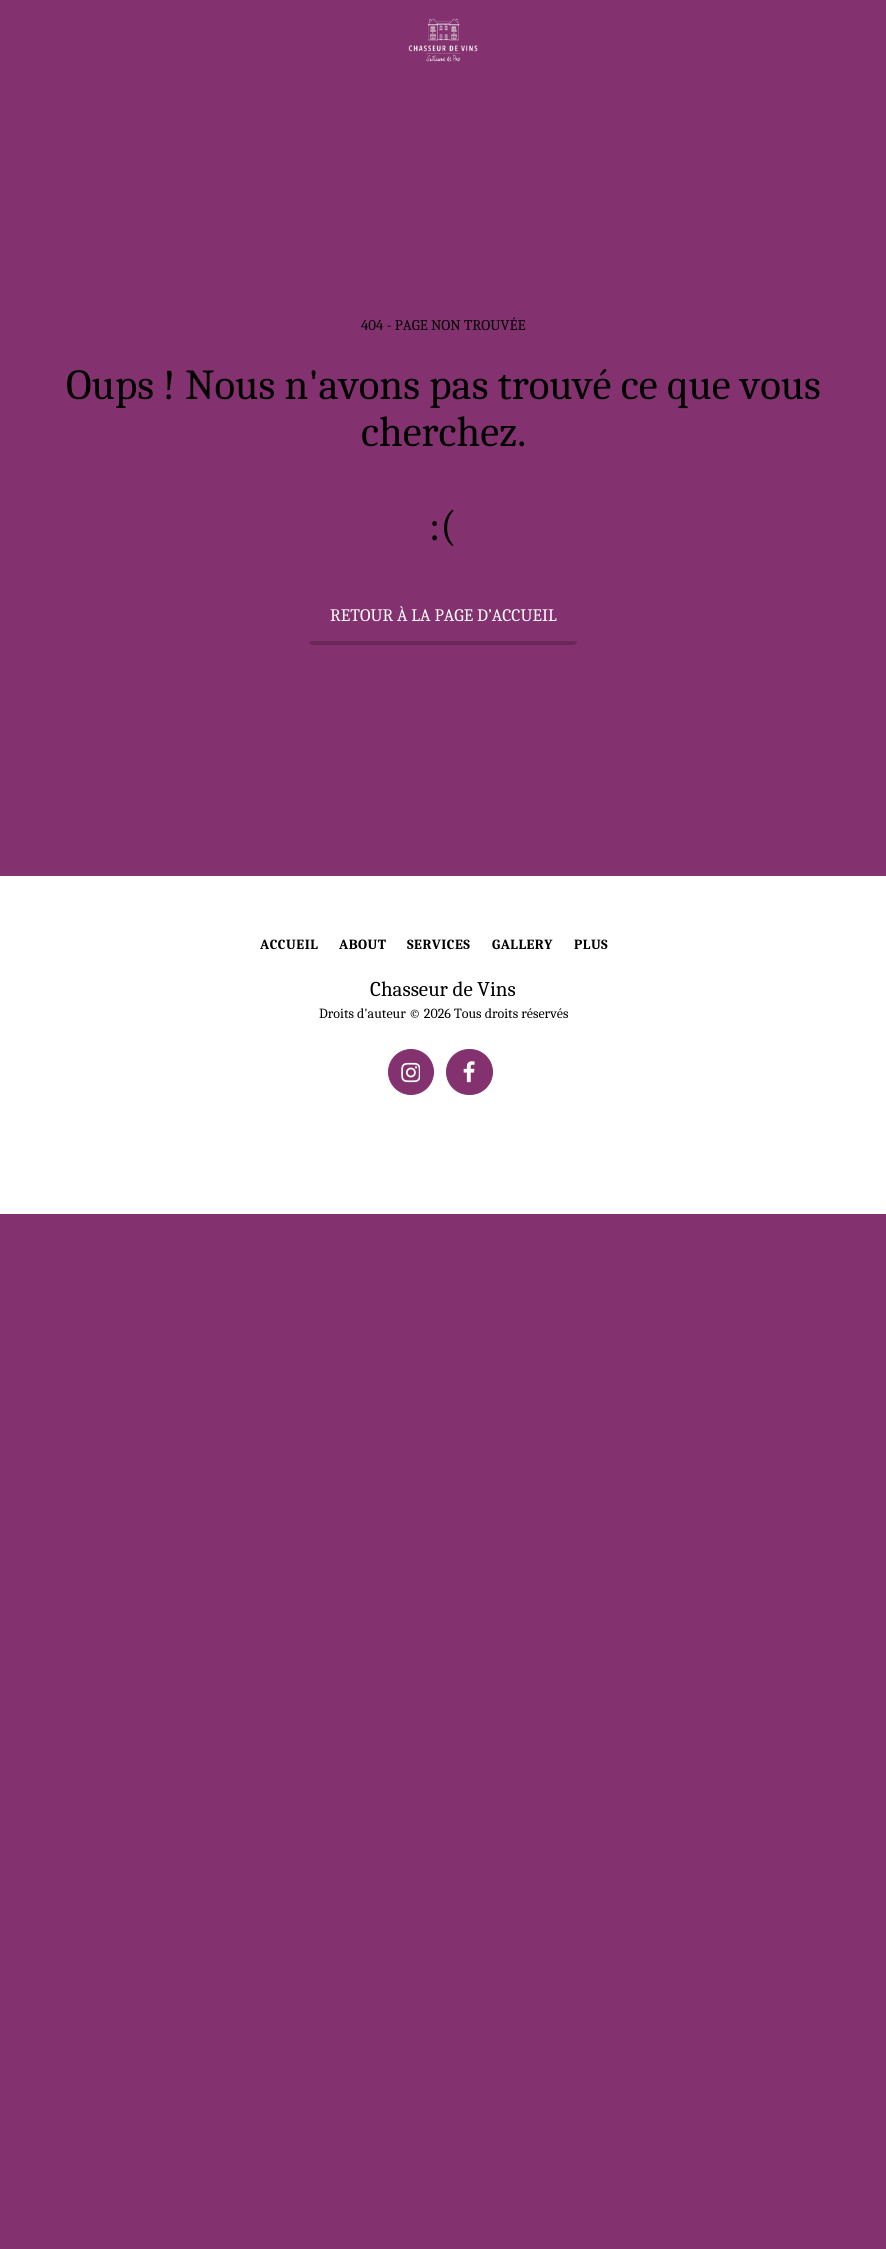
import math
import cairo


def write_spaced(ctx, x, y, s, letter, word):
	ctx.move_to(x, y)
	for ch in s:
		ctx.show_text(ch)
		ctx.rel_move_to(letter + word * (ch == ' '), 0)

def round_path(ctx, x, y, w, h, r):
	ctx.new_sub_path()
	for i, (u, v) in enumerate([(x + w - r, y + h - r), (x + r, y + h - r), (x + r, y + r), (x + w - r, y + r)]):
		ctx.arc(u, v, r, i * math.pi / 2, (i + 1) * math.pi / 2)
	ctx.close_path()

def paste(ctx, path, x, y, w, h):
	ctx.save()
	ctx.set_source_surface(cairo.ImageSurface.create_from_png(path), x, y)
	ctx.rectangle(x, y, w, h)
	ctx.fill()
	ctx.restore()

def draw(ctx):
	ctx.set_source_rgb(0.514, 0.196, 0.435)
	ctx.paint()
	paste(ctx, 'media/1.png', 408, 18, 70, 44)
	ctx.select_font_face('Caladea')
	ctx.set_font_size(14.9)
	ctx.set_source_rgb(0, 0, 0)
	ctx.move_to(361, 330)
	ctx.show_text('404 - PAGE NON TROUVÉE')
	ctx.set_font_size(42.75)
	for x, y, s in [
		(66, 399, 'Oups ! Nous n\'avons pas trouvé ce que vous'),
		(361, 446, 'cherchez.'),
		(429, 540, ':('),
	]:
		ctx.move_to(x, y)
		ctx.show_text(s)
	ctx.set_source_rgb(0.412, 0.157, 0.349)
	ctx.new_path()
	ctx.move_to(313, 645)
	ctx.line_to(573, 645)
	ctx.curve_to(575, 645, 576, 644, 577, 643)
	ctx.line_to(576, 640)
	ctx.line_to(576, 641)
	ctx.line_to(310, 641)
	ctx.line_to(309, 643)
	ctx.curve_to(310, 644, 312, 645, 313, 645)
	ctx.close_path()
	ctx.fill()
	ctx.set_source_rgb(0.514, 0.196, 0.435)
	ctx.new_path()
	ctx.move_to(310, 589)
	ctx.line_to(309, 591)
	ctx.curve_to(308, 595, 309, 641, 309, 643)
	ctx.line_to(310, 641)
	ctx.curve_to(310, 635, 309, 591, 311, 590)
	ctx.close_path()
	ctx.fill()
	ctx.set_font_size(17.5)
	ctx.set_source_rgb(1, 1, 1)
	ctx.move_to(330, 621)
	ctx.show_text('RETOUR À LA PAGE D’ACCUEIL')
	ctx.rectangle(0, 876, 886, 338)
	ctx.fill()
	ctx.select_font_face('Caladea', cairo.FONT_SLANT_NORMAL, cairo.FONT_WEIGHT_BOLD)
	ctx.set_font_size(14)
	ctx.set_source_rgb(0, 0, 0)
	for x, y, s in [
		(260, 949, 'ACCUEIL'),
		(339, 949, 'ABOUT'),
		(407, 949, 'SERVICES'),
		(492, 949, 'GALLERY'),
		(574, 949, 'PLUS'),
	]:
		write_spaced(ctx, x, y, s, 0.5, 0)
	ctx.select_font_face('Caladea')
	ctx.set_font_size(21)
	ctx.move_to(370, 996)
	ctx.show_text('Chasseur de Vins')
	ctx.set_font_size(14)
	ctx.move_to(319, 1018)
	ctx.show_text('Droits d\'auteur © 2026 Tous droits réservés')
	ctx.set_source_rgb(0.514, 0.196, 0.435)
	ctx.new_path()
	ctx.arc(411, 1072, 22.5, 0, 2 * math.pi)
	ctx.fill_preserve()
	ctx.set_line_width(1)
	ctx.stroke()
	paste(ctx, 'media/2.png', 401, 1062, 19, 21)
	round_path(ctx, 446.5, 1049.5, 46, 45, 22.5)
	ctx.fill_preserve()
	ctx.stroke()
	paste(ctx, 'media/3.png', 463, 1061, 12, 22)


surface = cairo.ImageSurface(cairo.FORMAT_RGB24, 886, 2249)
ctx = cairo.Context(surface)
options = cairo.FontOptions()
options.set_hint_metrics(cairo.HINT_METRICS_OFF)
options.set_hint_style(cairo.HINT_STYLE_NONE)
ctx.set_font_options(options)
ctx.set_miter_limit(4)
draw(ctx)
surface.write_to_png('image.png')
